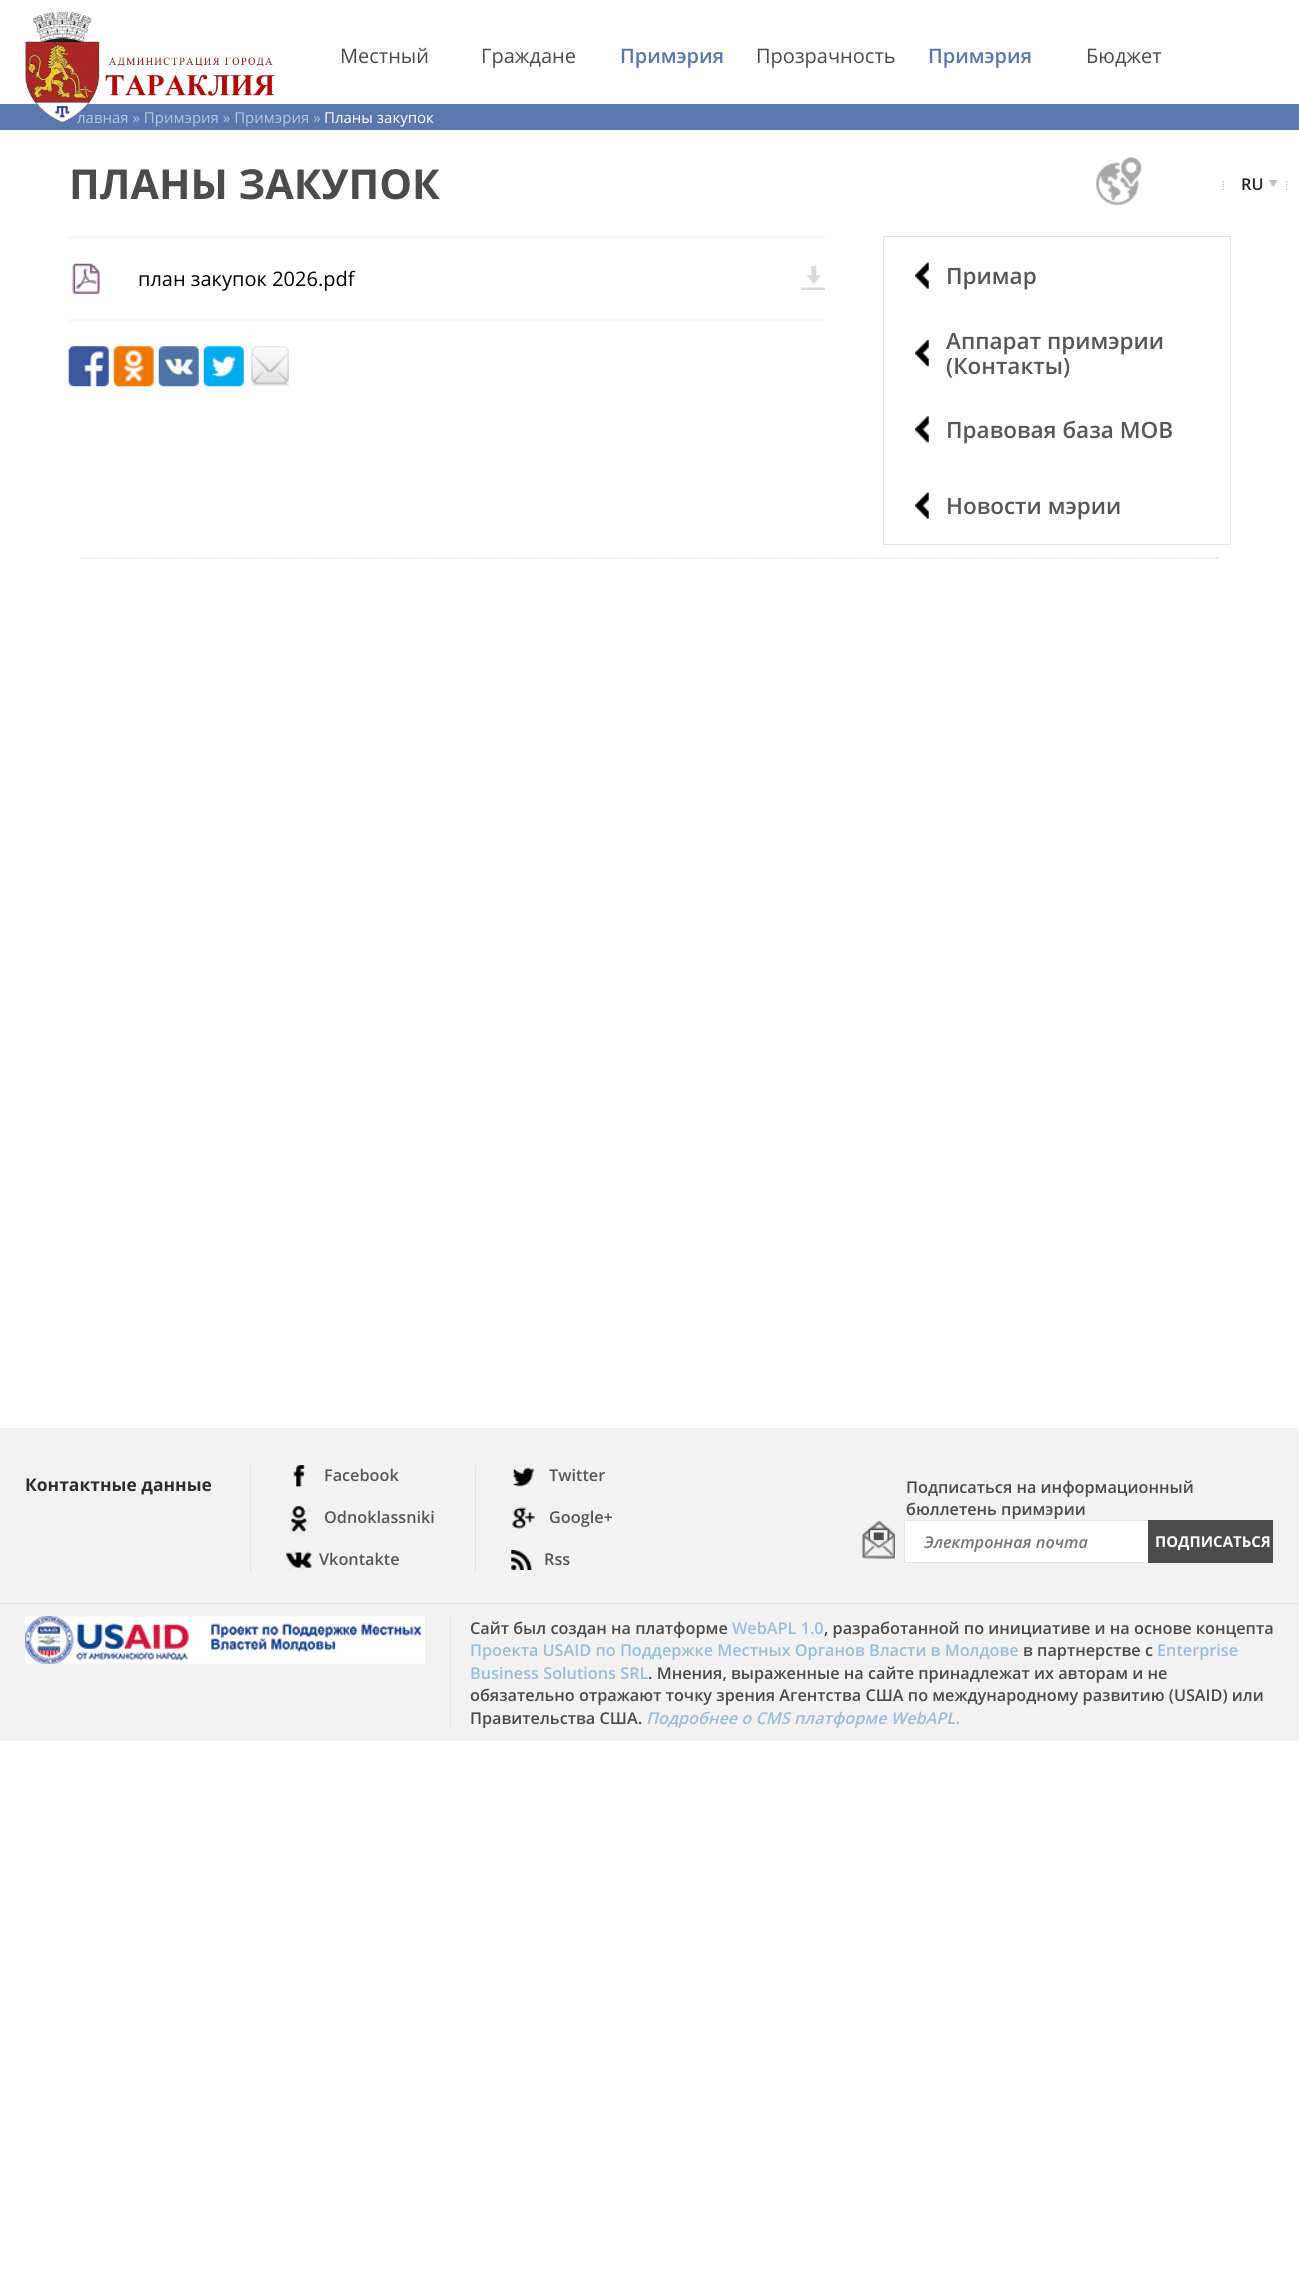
import math
import cairo


def paste(ctx, path, x, y, w, h):
	ctx.save()
	ctx.set_source_surface(cairo.ImageSurface.create_from_png(path), x, y)
	ctx.rectangle(x, y, w, h)
	ctx.fill()
	ctx.restore()

def draw(ctx):
	ctx.set_source_rgb(1, 1, 1)
	ctx.paint()
	ctx.set_source_rgb(0.353, 0.471, 0.678)
	ctx.rectangle(0, 104, 1299, 26)
	ctx.fill()
	ctx.select_font_face('Open Sans')
	ctx.set_font_size(15)
	ctx.set_source_rgb(0.694, 0.765, 0.886)
	ctx.move_to(77, 123)
	ctx.show_text('лавная » Примэрия » Примэрия »')
	paste(ctx, 'media/1.png', 25, 11, 250, 112)
	ctx.set_font_size(20)
	ctx.set_source_rgb(0.294, 0.294, 0.294)
	ctx.move_to(340, 63)
	ctx.show_text('Местный')
	ctx.move_to(481, 63)
	ctx.show_text('Граждане')
	ctx.select_font_face('Open Sans SemiBold')
	ctx.set_source_rgb(0.353, 0.471, 0.678)
	ctx.move_to(620, 63)
	ctx.show_text('Примэрия')
	ctx.select_font_face('Open Sans')
	ctx.set_source_rgb(0.294, 0.294, 0.294)
	ctx.move_to(756, 63)
	ctx.show_text('Прозрачность')
	ctx.select_font_face('Open Sans SemiBold')
	ctx.set_source_rgb(0.353, 0.471, 0.678)
	ctx.move_to(928, 63)
	ctx.show_text('Примэрия')
	ctx.select_font_face('Open Sans')
	ctx.set_source_rgb(0.294, 0.294, 0.294)
	ctx.move_to(1086, 63)
	ctx.show_text('Бюджет')
	paste(ctx, 'media/2.png', 1096, 157, 46, 49)
	paste(ctx, 'media/3.png', 1222, 181, 2, 9)
	ctx.select_font_face('Open Sans SemiBold')
	ctx.set_font_size(16.25)
	ctx.set_source_rgb(0.133, 0.133, 0.133)
	ctx.move_to(1241, 190)
	ctx.show_text('RU')
	paste(ctx, 'media/4.png', 1268, 180, 10, 8)
	paste(ctx, 'media/5.png', 1286, 181, 2, 9)
	ctx.select_font_face('Open Sans')
	ctx.set_font_size(15)
	ctx.set_source_rgb(1, 1, 1)
	ctx.move_to(324, 123)
	ctx.show_text('Планы закупок')
	ctx.select_font_face('Open Sans', cairo.FONT_SLANT_NORMAL, cairo.FONT_WEIGHT_BOLD)
	ctx.set_font_size(41.25)
	ctx.set_source_rgb(0.294, 0.294, 0.294)
	ctx.move_to(69, 199)
	ctx.show_text('ПЛАНЫ ЗАКУПОК')
	ctx.set_source_rgb(0.969, 0.969, 0.969)
	ctx.rectangle(69, 236, 756, 3)
	ctx.fill()
	ctx.rectangle(69, 319, 756, 3)
	ctx.fill()
	paste(ctx, 'media/6.png', 72, 263, 28, 31)
	ctx.select_font_face('Open Sans')
	ctx.set_font_size(20)
	ctx.set_source_rgb(0, 0, 0)
	ctx.move_to(138, 286)
	ctx.show_text('план закупок 2026.pdf')
	paste(ctx, 'media/7.png', 801, 266, 24, 24)
	paste(ctx, 'media/8.png', 68, 346, 41, 41)
	paste(ctx, 'media/9.png', 113, 346, 41, 41)
	paste(ctx, 'media/10.png', 158, 346, 41, 41)
	paste(ctx, 'media/11.png', 203, 346, 41, 41)
	paste(ctx, 'media/12.png', 251, 346, 38, 40)
	ctx.rectangle(883.5, 236.5, 347, 308)
	ctx.set_source_rgb(0.89, 0.89, 0.89)
	ctx.set_line_width(1)
	ctx.stroke()
	paste(ctx, 'media/13.png', 915, 262, 14, 27)
	ctx.select_font_face('Open Sans SemiBold')
	ctx.set_font_size(22.5)
	ctx.set_source_rgb(0.341, 0.341, 0.341)
	ctx.move_to(946, 284)
	ctx.show_text('Примар')
	paste(ctx, 'media/14.png', 915, 340, 14, 27)
	ctx.move_to(946, 349)
	ctx.show_text('Аппарат примэрии')
	ctx.move_to(946, 374)
	ctx.show_text('(Контакты)')
	paste(ctx, 'media/15.png', 915, 416, 14, 27)
	ctx.move_to(946, 438)
	ctx.show_text('Правовая база МОВ')
	paste(ctx, 'media/13.png', 915, 492, 14, 27)
	ctx.move_to(946, 514)
	ctx.show_text('Новости мэрии')
	ctx.new_path()
	ctx.move_to(81, 558)
	ctx.line_to(1219, 558)
	ctx.set_source_rgb(0.859, 0.859, 0.859)
	ctx.set_line_width(1.2)
	ctx.set_dash([1.25, 1.25])
	ctx.stroke()
	ctx.set_source_rgb(0.949, 0.949, 0.949)
	ctx.rectangle(0, 1428, 1299, 313)
	ctx.fill()
	ctx.select_font_face('Open Sans', cairo.FONT_SLANT_NORMAL, cairo.FONT_WEIGHT_BOLD)
	ctx.set_font_size(17.5)
	ctx.set_source_rgb(0.18, 0.18, 0.18)
	ctx.move_to(25, 1491)
	ctx.show_text('Контактные данные')
	ctx.set_source_rgb(0.89, 0.89, 0.89)
	ctx.rectangle(250, 1465, 1, 108)
	ctx.fill()
	paste(ctx, 'media/16.png', 293, 1465, 12, 23)
	ctx.select_font_face('Open Sans SemiBold')
	ctx.set_font_size(16.25)
	ctx.set_source_rgb(0.341, 0.341, 0.341)
	ctx.move_to(324, 1481)
	ctx.show_text('Facebook')
	paste(ctx, 'media/17.png', 289, 1506, 21, 26)
	ctx.move_to(324, 1523)
	ctx.show_text('Odnoklassniki')
	paste(ctx, 'media/18.png', 286, 1550, 26, 22)
	ctx.move_to(319, 1565)
	ctx.show_text('Vkontakte')
	ctx.set_source_rgb(0.89, 0.89, 0.89)
	ctx.rectangle(475, 1465, 1, 108)
	ctx.fill()
	paste(ctx, 'media/19.png', 512, 1467, 23, 20)
	ctx.set_source_rgb(0.341, 0.341, 0.341)
	ctx.move_to(549, 1481)
	ctx.show_text('Twitter')
	paste(ctx, 'media/20.png', 512, 1507, 23, 22)
	ctx.move_to(549, 1523)
	ctx.show_text('Google+')
	paste(ctx, 'media/21.png', 511, 1550, 21, 20)
	ctx.move_to(544, 1565)
	ctx.show_text('Rss')
	ctx.set_source_rgb(0.294, 0.294, 0.294)
	ctx.move_to(906, 1493)
	ctx.show_text('Подписаться на информационный')
	ctx.move_to(906, 1515)
	ctx.show_text('бюллетень примэрии')
	paste(ctx, 'media/22.png', 862, 1520, 33, 39)
	ctx.set_source_rgb(1, 1, 1)
	ctx.rectangle(905, 1521, 243, 41)
	ctx.fill()
	ctx.rectangle(904.5, 1520.5, 249, 42)
	ctx.set_source_rgb(0.894, 0.894, 0.894)
	ctx.set_line_width(1)
	ctx.set_dash([])
	ctx.stroke()
	ctx.select_font_face('Open Sans SemiBold', cairo.FONT_SLANT_ITALIC)
	ctx.set_source_rgb(0.459, 0.459, 0.459)
	ctx.move_to(924, 1548)
	ctx.show_text('Электронная почта')
	ctx.set_source_rgb(0.294, 0.294, 0.294)
	ctx.rectangle(1148, 1520, 125, 43)
	ctx.fill()
	ctx.select_font_face('Open Sans', cairo.FONT_SLANT_NORMAL, cairo.FONT_WEIGHT_BOLD)
	ctx.set_font_size(15)
	ctx.set_source_rgb(1, 1, 1)
	ctx.move_to(1155, 1547)
	ctx.show_text('ПОДПИСАТЬСЯ')
	ctx.set_source_rgb(0.89, 0.89, 0.89)
	ctx.rectangle(0, 1603, 1299, 1)
	ctx.fill()
	paste(ctx, 'media/23.png', 25, 1616, 400, 48)
	ctx.rectangle(450, 1616, 1, 113)
	ctx.fill()
	ctx.select_font_face('Open Sans SemiBold')
	ctx.set_font_size(16.25)
	ctx.set_source_rgb(0.294, 0.294, 0.294)
	ctx.move_to(470, 1634)
	ctx.show_text('Сайт был создан на платформе')
	ctx.set_source_rgb(0.6, 0.741, 0.875)
	ctx.move_to(732, 1634)
	ctx.show_text('WebAPL 1.0')
	ctx.set_source_rgb(0.294, 0.294, 0.294)
	ctx.move_to(824, 1634)
	ctx.show_text(', разработанной по инициативе и на основе концепта')
	ctx.set_source_rgb(0.6, 0.741, 0.875)
	ctx.move_to(470, 1656)
	ctx.show_text('Проекта USAID по Поддержке Местных Органов Власти в Молдове')
	ctx.set_source_rgb(0.294, 0.294, 0.294)
	ctx.move_to(1023, 1656)
	ctx.show_text('в партнерстве с')
	ctx.set_source_rgb(0.6, 0.741, 0.875)
	ctx.move_to(1157, 1656)
	ctx.show_text('Enterprise')
	ctx.move_to(470, 1679)
	ctx.show_text('Business Solutions SRL')
	ctx.set_source_rgb(0.294, 0.294, 0.294)
	for x, y, s in [
		(648, 1679, '. Мнения, выраженные на сайте принадлежат их авторам и не'),
		(470, 1701, 'обязательно отражают точку зрения Агентства США по международному развитию (USAID) или'),
		(470, 1724, 'Правительства США.'),
	]:
		ctx.move_to(x, y)
		ctx.show_text(s)
	ctx.select_font_face('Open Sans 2 SemiBold', cairo.FONT_SLANT_ITALIC)
	ctx.set_source_rgb(0.6, 0.741, 0.875)
	ctx.move_to(646, 1724)
	ctx.show_text('Подробнее о CMS платформе WebAPL.')


surface = cairo.ImageSurface(cairo.FORMAT_RGB24, 1299, 2292)
ctx = cairo.Context(surface)
options = cairo.FontOptions()
options.set_hint_metrics(cairo.HINT_METRICS_OFF)
options.set_hint_style(cairo.HINT_STYLE_NONE)
ctx.set_font_options(options)
ctx.set_miter_limit(4)
draw(ctx)
surface.write_to_png('image.png')
